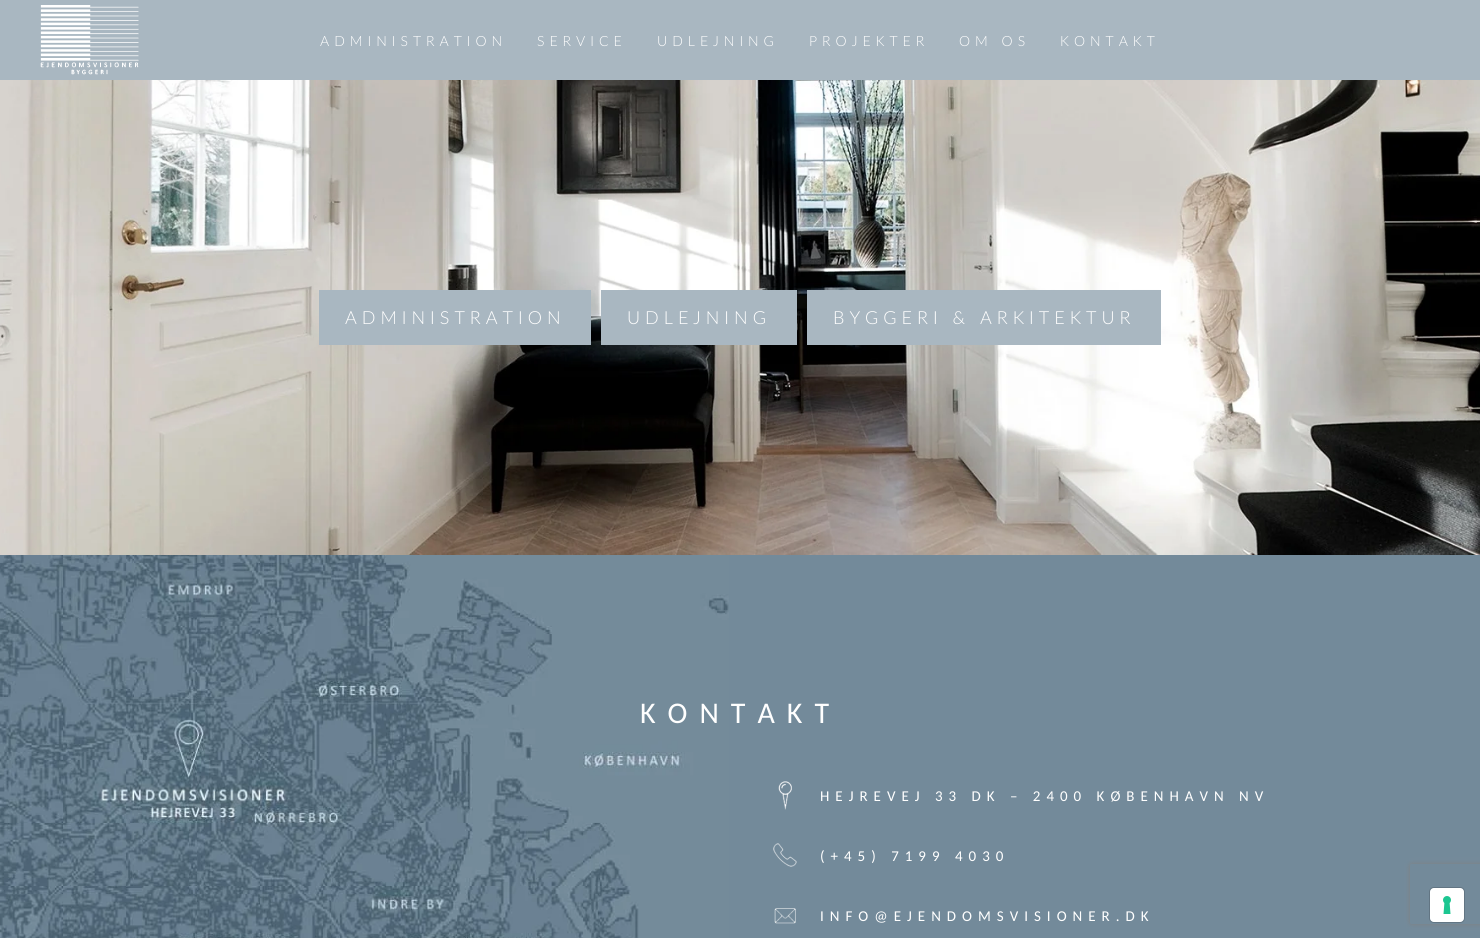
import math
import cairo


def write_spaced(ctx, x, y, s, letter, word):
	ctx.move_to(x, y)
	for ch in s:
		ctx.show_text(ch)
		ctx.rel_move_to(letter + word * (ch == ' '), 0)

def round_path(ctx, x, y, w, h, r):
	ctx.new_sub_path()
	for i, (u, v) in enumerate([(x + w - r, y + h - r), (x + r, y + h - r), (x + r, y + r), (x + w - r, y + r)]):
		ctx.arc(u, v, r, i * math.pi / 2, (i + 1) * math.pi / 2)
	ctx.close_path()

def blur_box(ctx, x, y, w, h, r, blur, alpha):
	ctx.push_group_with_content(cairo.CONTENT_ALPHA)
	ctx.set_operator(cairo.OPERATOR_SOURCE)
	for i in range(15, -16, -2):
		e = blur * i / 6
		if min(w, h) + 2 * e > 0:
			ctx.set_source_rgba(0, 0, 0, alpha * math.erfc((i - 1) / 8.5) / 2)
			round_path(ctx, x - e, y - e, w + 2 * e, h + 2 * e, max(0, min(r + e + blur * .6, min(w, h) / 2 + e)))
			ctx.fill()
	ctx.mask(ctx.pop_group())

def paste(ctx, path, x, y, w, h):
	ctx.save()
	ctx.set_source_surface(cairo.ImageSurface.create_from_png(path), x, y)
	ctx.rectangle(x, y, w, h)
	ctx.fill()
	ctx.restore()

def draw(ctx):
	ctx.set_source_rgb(1, 1, 1)
	ctx.paint()
	ctx.set_source_rgb(0.663, 0.718, 0.757)
	ctx.rectangle(0, 0, 1480, 80)
	ctx.fill()
	paste(ctx, 'media/1.png', 40, 5, 99, 70)
	ctx.select_font_face('Lato Light')
	ctx.set_font_size(14)
	ctx.set_source_rgb(1, 1, 1)
	for x, y, s in [
		(320, 46, 'ADMINISTRATION'),
		(537, 46, 'SERVICE'),
		(657, 46, 'UDLEJNING'),
		(809, 46, 'PROJEKTER'),
		(959, 46, 'OM OS'),
		(1060, 46, 'KONTAKT'),
	]:
		write_spaced(ctx, x, y, s, 5, 0)
	paste(ctx, 'media/2.png', 0, 80, 1480, 475)
	ctx.set_source_rgb(0.663, 0.718, 0.757)
	ctx.rectangle(319, 290, 272, 55)
	ctx.fill()
	ctx.set_font_size(18)
	ctx.set_source_rgb(1, 1, 1)
	write_spaced(ctx, 345, 324, 'ADMINISTRATION', 5, 0)
	ctx.set_source_rgb(0.663, 0.718, 0.757)
	ctx.rectangle(601, 290, 196, 55)
	ctx.fill()
	ctx.set_source_rgb(1, 1, 1)
	write_spaced(ctx, 627, 324, 'UDLEJNING', 5, 0)
	ctx.set_source_rgb(0.663, 0.718, 0.757)
	ctx.rectangle(807, 290, 354, 55)
	ctx.fill()
	ctx.set_source_rgb(1, 1, 1)
	write_spaced(ctx, 833, 324, 'BYGGERI & ARKITEKTUR', 5, 0)
	ctx.set_source_rgb(0.451, 0.541, 0.604)
	ctx.rectangle(729, 555, 751, 383)
	ctx.fill()
	paste(ctx, 'media/3.png', 0, 555, 729, 383)
	ctx.select_font_face('Carlito')
	ctx.set_font_size(30)
	ctx.set_source_rgb(1, 1, 1)
	write_spaced(ctx, 640, 723, 'KONTAKT', 12, 0)
	paste(ctx, 'media/4.png', 778, 781, 14, 29)
	ctx.set_font_size(15)
	write_spaced(ctx, 820, 801, 'HEJREVEJ 33 DK – 2400 KØBENHAVN NV', 6, 0)
	paste(ctx, 'media/5.png', 773, 843, 24, 24)
	write_spaced(ctx, 820, 861, '(+45) 7199 4030', 6, 0)
	paste(ctx, 'media/6.png', 774, 908, 22, 16)
	write_spaced(ctx, 820, 921, 'INFO@EJENDOMSVISIONER.DK', 6, 0)
	ctx.save()
	ctx.set_fill_rule(cairo.FILL_RULE_EVEN_ODD)
	ctx.new_path()
	ctx.move_to(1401, 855)
	ctx.line_to(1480, 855)
	ctx.line_to(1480, 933)
	ctx.line_to(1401, 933)
	ctx.close_path()
	ctx.move_to(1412, 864)
	ctx.line_to(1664, 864)
	ctx.curve_to(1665, 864, 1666, 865, 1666, 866)
	ctx.line_to(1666, 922)
	ctx.curve_to(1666, 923, 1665, 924, 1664, 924)
	ctx.line_to(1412, 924)
	ctx.curve_to(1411, 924, 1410, 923, 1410, 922)
	ctx.line_to(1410, 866)
	ctx.curve_to(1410, 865, 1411, 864, 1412, 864)
	ctx.close_path()
	ctx.clip()
	ctx.set_source_rgb(0.502, 0.502, 0.502)
	blur_box(ctx, 1410, 864, 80, 60, 2, 2.5, 1)
	ctx.restore()
	round_path(ctx, 1429.5, 887.5, 35, 35, 4.5)
	ctx.set_source_rgb(0.384, 0.459, 0.514)
	ctx.set_line_width(1)
	ctx.stroke()
	ctx.set_source_rgb(1, 1, 1)
	round_path(ctx, 1430, 888, 34, 34, 4)
	ctx.fill()
	paste(ctx, 'media/7.png', 1443, 896, 8, 18)


surface = cairo.ImageSurface(cairo.FORMAT_RGB24, 1480, 938)
ctx = cairo.Context(surface)
options = cairo.FontOptions()
options.set_hint_metrics(cairo.HINT_METRICS_OFF)
options.set_hint_style(cairo.HINT_STYLE_NONE)
ctx.set_font_options(options)
ctx.set_miter_limit(4)
draw(ctx)
surface.write_to_png('image.png')
